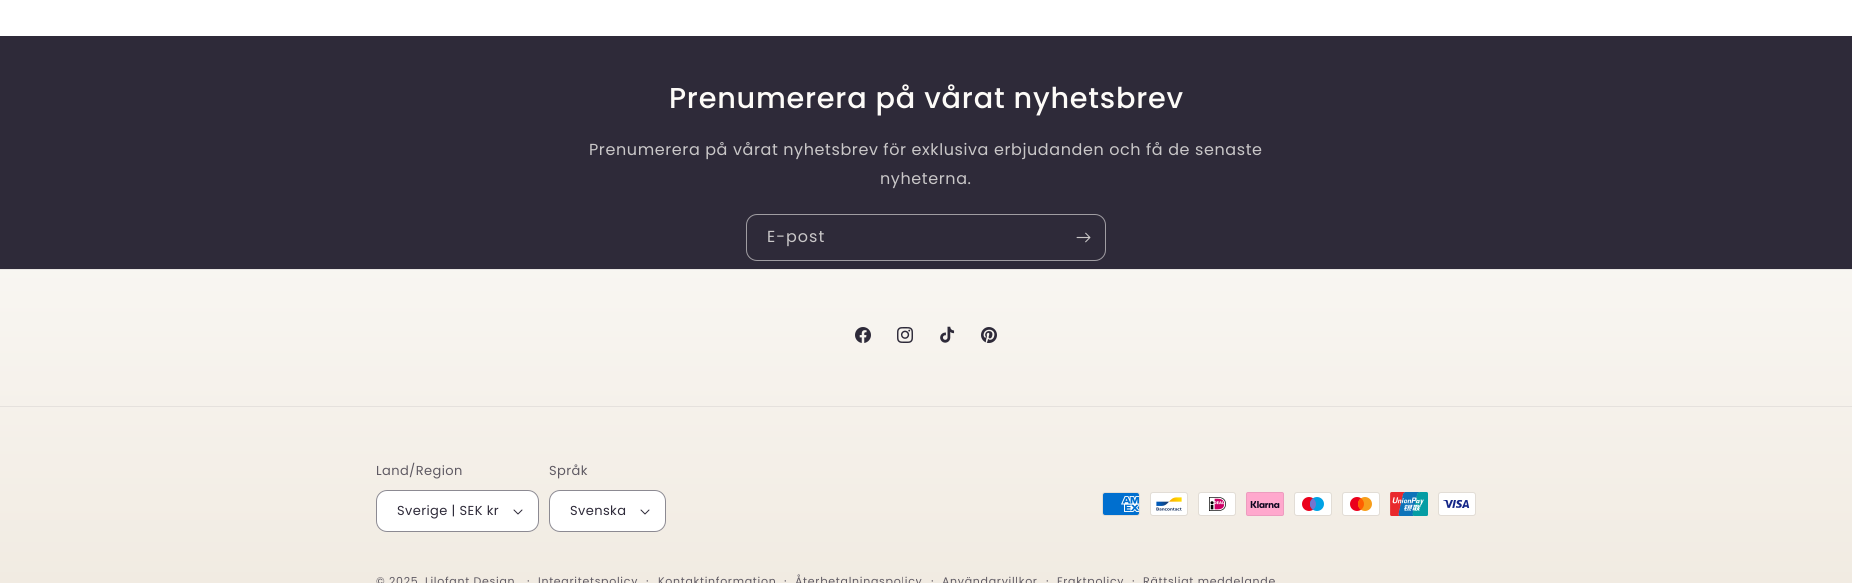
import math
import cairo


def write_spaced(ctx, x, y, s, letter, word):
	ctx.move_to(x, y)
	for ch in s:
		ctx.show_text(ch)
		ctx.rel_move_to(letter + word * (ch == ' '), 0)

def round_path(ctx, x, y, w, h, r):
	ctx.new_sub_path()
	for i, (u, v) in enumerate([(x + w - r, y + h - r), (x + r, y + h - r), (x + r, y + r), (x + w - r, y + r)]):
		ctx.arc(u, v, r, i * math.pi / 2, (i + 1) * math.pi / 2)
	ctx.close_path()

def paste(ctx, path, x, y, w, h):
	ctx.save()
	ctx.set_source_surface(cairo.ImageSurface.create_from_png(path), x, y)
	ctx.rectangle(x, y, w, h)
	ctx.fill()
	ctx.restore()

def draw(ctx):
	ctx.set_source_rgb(1, 1, 1)
	ctx.paint()
	gradient = cairo.LinearGradient(926, 0, 926, 583)
	gradient.add_color_stop_rgba(0, 1, 1, 1, 1)
	gradient.add_color_stop_rgba(1, 0.945, 0.922, 0.886, 1)
	ctx.set_source(gradient)
	ctx.rectangle(0, 50, 1852, 533)
	ctx.fill()
	ctx.set_source_rgb(0.18, 0.165, 0.224)
	ctx.rectangle(0, 36, 1852, 233)
	ctx.fill()
	ctx.select_font_face('Poppins Medium')
	ctx.set_font_size(28.75)
	ctx.set_source_rgb(0.992, 0.984, 0.969)
	write_spaced(ctx, 669, 108, 'Prenumerera på vårat nyhetsbrev', 0.75, 0)
	ctx.select_font_face('Poppins')
	ctx.set_font_size(16)
	ctx.set_source_rgb(0.788, 0.78, 0.784)
	write_spaced(ctx, 589, 155, 'Prenumerera på vårat nyhetsbrev för exklusiva erbjudanden och få de senaste', 0.6, 0)
	write_spaced(ctx, 880, 184, 'nyheterna.', 0.6, 0)
	round_path(ctx, 746.5, 214.5, 359, 46, 10.5)
	ctx.set_source_rgb(0.627, 0.616, 0.635)
	ctx.set_line_width(1)
	ctx.stroke()
	ctx.set_source_rgb(0.788, 0.78, 0.784)
	write_spaced(ctx, 767, 242, 'E-post', 1, 0)
	paste(ctx, 'media/1.png', 1076, 232, 15, 11)
	ctx.set_source_rgb(0.914, 0.902, 0.89)
	ctx.rectangle(0, 269, 1852, 1)
	ctx.fill()
	paste(ctx, 'media/2.png', 855, 327, 16, 16)
	paste(ctx, 'media/3.png', 897, 327, 16, 16)
	paste(ctx, 'media/4.png', 940, 326, 15, 17)
	paste(ctx, 'media/5.png', 981, 327, 16, 16)
	ctx.set_source_rgb(0.898, 0.882, 0.867)
	ctx.rectangle(0, 406, 1852, 1)
	ctx.fill()
	ctx.set_font_size(13)
	ctx.set_source_rgb(0.373, 0.353, 0.388)
	write_spaced(ctx, 376, 475, 'Land/Region', 0.4, 0)
	ctx.set_source_rgb(1, 1, 1)
	round_path(ctx, 376, 490, 163, 42, 11)
	ctx.fill()
	paste(ctx, 'media/6.png', 513, 509, 10, 6)
	round_path(ctx, 376.5, 490.5, 162, 41, 10.5)
	ctx.set_source_rgba(0.18, 0.165, 0.224, 0.55)
	ctx.stroke()
	ctx.set_source_rgb(0.18, 0.165, 0.224)
	write_spaced(ctx, 397, 515, 'Sverige | SEK kr', 0.4, 0)
	ctx.set_source_rgb(0.373, 0.353, 0.388)
	write_spaced(ctx, 549, 475, 'Språk', 0.4, 0)
	ctx.set_source_rgb(1, 1, 1)
	round_path(ctx, 549, 490, 117, 42, 11)
	ctx.fill()
	paste(ctx, 'media/6.png', 640, 509, 10, 6)
	round_path(ctx, 549.5, 490.5, 116, 41, 10.5)
	ctx.set_source_rgba(0.18, 0.165, 0.224, 0.55)
	ctx.stroke()
	ctx.set_source_rgb(0.18, 0.165, 0.224)
	write_spaced(ctx, 570, 515, 'Svenska', 0.4, 0)
	paste(ctx, 'media/7.png', 1102, 492, 38, 24)
	paste(ctx, 'media/8.png', 1150, 492, 38, 24)
	paste(ctx, 'media/9.png', 1198, 492, 38, 24)
	paste(ctx, 'media/10.png', 1246, 492, 38, 24)
	paste(ctx, 'media/11.png', 1294, 492, 38, 24)
	paste(ctx, 'media/12.png', 1342, 492, 38, 24)
	paste(ctx, 'media/13.png', 1390, 492, 38, 24)
	paste(ctx, 'media/14.png', 1438, 492, 38, 24)
	ctx.set_font_size(11)
	ctx.set_source_rgb(0.373, 0.353, 0.388)
	write_spaced(ctx, 376, 585, '© 2025', 0.7, 0)
	write_spaced(ctx, 425, 585, 'Lilofant Design', 0.7, 0)
	ctx.set_font_size(12)
	write_spaced(ctx, 527, 585, '·', 0.7, 0)
	ctx.set_font_size(11)
	write_spaced(ctx, 538, 585, 'Integritetspolicy', 0.7, 0)
	ctx.set_font_size(12)
	write_spaced(ctx, 646, 585, '·', 0.7, 0)
	ctx.set_font_size(11)
	write_spaced(ctx, 658, 585, 'Kontaktinformation', 0.7, 0)
	ctx.set_font_size(12)
	write_spaced(ctx, 784, 585, '·', 0.7, 0)
	ctx.set_font_size(11)
	write_spaced(ctx, 795, 585, 'Återbetalningspolicy', 0.7, 0)
	ctx.set_font_size(12)
	write_spaced(ctx, 931, 585, '·', 0.7, 0)
	ctx.set_font_size(11)
	write_spaced(ctx, 942, 585, 'Användarvillkor', 0.7, 0)
	ctx.set_font_size(12)
	write_spaced(ctx, 1046, 585, '·', 0.7, 0)
	ctx.set_font_size(11)
	write_spaced(ctx, 1057, 585, 'Fraktpolicy', 0.7, 0)
	ctx.set_font_size(12)
	write_spaced(ctx, 1132, 585, '·', 0.7, 0)
	ctx.set_font_size(11)
	write_spaced(ctx, 1143, 585, 'Rättsligt meddelande', 0.7, 0)


surface = cairo.ImageSurface(cairo.FORMAT_RGB24, 1852, 583)
ctx = cairo.Context(surface)
options = cairo.FontOptions()
options.set_hint_metrics(cairo.HINT_METRICS_OFF)
options.set_hint_style(cairo.HINT_STYLE_NONE)
ctx.set_font_options(options)
ctx.set_miter_limit(4)
draw(ctx)
surface.write_to_png('image.png')
